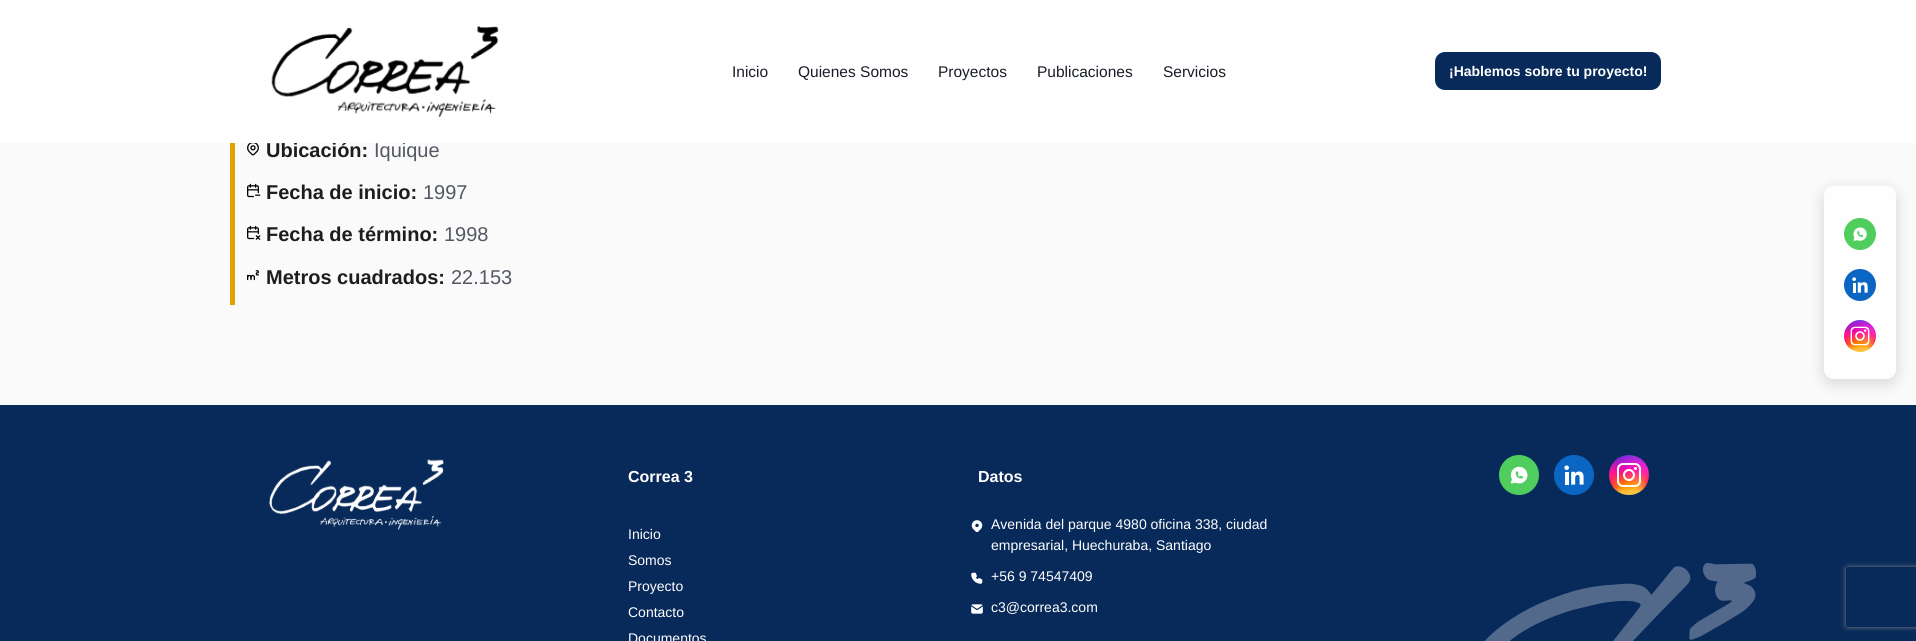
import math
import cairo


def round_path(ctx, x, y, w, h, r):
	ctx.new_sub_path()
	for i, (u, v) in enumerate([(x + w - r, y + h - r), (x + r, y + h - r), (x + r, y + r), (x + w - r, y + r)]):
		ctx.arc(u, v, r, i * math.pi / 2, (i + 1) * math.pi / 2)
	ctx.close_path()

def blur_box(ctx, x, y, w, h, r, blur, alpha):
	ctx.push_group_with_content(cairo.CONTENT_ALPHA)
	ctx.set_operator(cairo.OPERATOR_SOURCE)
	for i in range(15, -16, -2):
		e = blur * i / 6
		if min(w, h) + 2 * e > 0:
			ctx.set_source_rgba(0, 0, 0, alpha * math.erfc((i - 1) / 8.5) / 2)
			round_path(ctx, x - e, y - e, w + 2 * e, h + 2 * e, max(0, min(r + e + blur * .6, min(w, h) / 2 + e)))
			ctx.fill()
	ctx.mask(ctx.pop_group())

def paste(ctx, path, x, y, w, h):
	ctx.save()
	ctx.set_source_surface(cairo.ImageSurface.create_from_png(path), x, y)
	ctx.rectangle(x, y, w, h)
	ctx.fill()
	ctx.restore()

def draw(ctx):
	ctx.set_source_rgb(0.98, 0.98, 0.98)
	ctx.paint()
	ctx.set_source_rgb(0.894, 0.627, 0)
	ctx.rectangle(230, 136, 5, 169)
	ctx.fill()
	ctx.select_font_face('Liberation Sans', cairo.FONT_SLANT_NORMAL, cairo.FONT_WEIGHT_BOLD)
	ctx.set_font_size(20)
	ctx.set_source_rgb(0.114, 0.114, 0.114)
	ctx.move_to(266, 157)
	ctx.show_text('Ubicación:')
	ctx.select_font_face('Liberation Sans')
	ctx.set_source_rgb(0.325, 0.345, 0.384)
	ctx.move_to(374, 157)
	ctx.show_text('Iquique')
	ctx.set_source_rgb(1, 1, 1)
	ctx.rectangle(0, 0, 1916, 143)
	ctx.fill()
	paste(ctx, 'media/1.png', 271, 26, 228, 91)
	ctx.set_font_size(15.5)
	ctx.set_source_rgb(0.094, 0.114, 0.153)
	for x, y, s in [
		(732, 77, 'Inicio'),
		(798, 77, 'Quienes Somos'),
		(938, 77, 'Proyectos'),
		(1037, 77, 'Publicaciones'),
		(1163, 77, 'Servicios'),
	]:
		ctx.move_to(x, y)
		ctx.show_text(s)
	ctx.set_source_rgb(0.035, 0.165, 0.353)
	round_path(ctx, 1435, 52, 226, 38, 10)
	ctx.fill()
	ctx.select_font_face('Liberation Sans', cairo.FONT_SLANT_NORMAL, cairo.FONT_WEIGHT_BOLD)
	ctx.set_font_size(14)
	ctx.set_source_rgb(1, 1, 1)
	ctx.move_to(1449, 76)
	ctx.show_text('¡Hablemos sobre tu proyecto!')
	ctx.set_source_rgb(0.035, 0.165, 0.353)
	ctx.rectangle(0, 405, 1916, 236)
	ctx.fill()
	ctx.save()
	ctx.set_fill_rule(cairo.FILL_RULE_EVEN_ODD)
	ctx.new_path()
	ctx.move_to(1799, 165)
	ctx.line_to(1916, 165)
	ctx.line_to(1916, 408)
	ctx.line_to(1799, 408)
	ctx.close_path()
	ctx.move_to(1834, 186)
	ctx.line_to(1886, 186)
	ctx.curve_to(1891.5, 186, 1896, 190.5, 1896, 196)
	ctx.line_to(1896, 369)
	ctx.curve_to(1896, 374.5, 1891.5, 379, 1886, 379)
	ctx.line_to(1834, 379)
	ctx.curve_to(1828.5, 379, 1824, 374.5, 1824, 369)
	ctx.line_to(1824, 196)
	ctx.curve_to(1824, 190.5, 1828.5, 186, 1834, 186)
	ctx.close_path()
	ctx.clip()
	ctx.set_source_rgb(0, 0, 0)
	blur_box(ctx, 1824, 190, 72, 193, 10, 8, 0.15)
	ctx.restore()
	ctx.set_source_rgba(1, 1, 1, 0.8)
	round_path(ctx, 1824, 186, 72, 193, 10)
	ctx.fill()
	paste(ctx, 'media/2.png', 1844, 218, 32, 32)
	paste(ctx, 'media/3.png', 1844, 269, 32, 32)
	paste(ctx, 'media/4.png', 1844, 320, 32, 32)
	paste(ctx, 'media/5.png', 247, 143, 12, 13)
	paste(ctx, 'media/6.png', 247, 183, 14, 15)
	ctx.set_font_size(20)
	ctx.set_source_rgb(0.114, 0.114, 0.114)
	ctx.move_to(266, 199)
	ctx.show_text('Fecha de inicio:')
	ctx.select_font_face('Liberation Sans')
	ctx.set_source_rgb(0.325, 0.345, 0.384)
	ctx.move_to(423, 199)
	ctx.show_text('1997')
	paste(ctx, 'media/7.png', 247, 225, 14, 15)
	ctx.select_font_face('Liberation Sans', cairo.FONT_SLANT_NORMAL, cairo.FONT_WEIGHT_BOLD)
	ctx.set_source_rgb(0.114, 0.114, 0.114)
	ctx.move_to(266, 241)
	ctx.show_text('Fecha de término:')
	ctx.select_font_face('Liberation Sans')
	ctx.set_source_rgb(0.325, 0.345, 0.384)
	ctx.move_to(444, 241)
	ctx.show_text('1998')
	paste(ctx, 'media/8.png', 247, 270, 12, 11)
	ctx.select_font_face('Liberation Sans', cairo.FONT_SLANT_NORMAL, cairo.FONT_WEIGHT_BOLD)
	ctx.set_source_rgb(0.114, 0.114, 0.114)
	ctx.move_to(266, 284)
	ctx.show_text('Metros cuadrados:')
	ctx.select_font_face('Liberation Sans')
	ctx.set_source_rgb(0.325, 0.345, 0.384)
	ctx.move_to(451, 284)
	ctx.show_text('22.153')
	paste(ctx, 'media/9.png', 1484, 563, 272, 78)
	paste(ctx, 'media/10.png', 269, 459, 175, 71)
	ctx.select_font_face('Liberation Sans', cairo.FONT_SLANT_NORMAL, cairo.FONT_WEIGHT_BOLD)
	ctx.set_font_size(16)
	ctx.set_source_rgb(1, 1, 1)
	ctx.move_to(628, 482)
	ctx.show_text('Correa 3')
	ctx.select_font_face('Liberation Sans')
	ctx.set_font_size(14)
	for x, y, s in [
		(628, 539, 'Inicio'),
		(628, 565, 'Somos'),
		(628, 591, 'Proyecto'),
		(628, 617, 'Contacto'),
		(628, 643, 'Documentos'),
	]:
		ctx.move_to(x, y)
		ctx.show_text(s)
	ctx.select_font_face('Liberation Sans', cairo.FONT_SLANT_NORMAL, cairo.FONT_WEIGHT_BOLD)
	ctx.set_font_size(16)
	ctx.move_to(978, 482)
	ctx.show_text('Datos')
	paste(ctx, 'media/11.png', 971, 520, 12, 13)
	ctx.select_font_face('Liberation Sans')
	ctx.set_font_size(14)
	ctx.move_to(991, 529)
	ctx.show_text('Avenida del parque 4980 oficina 338, ciudad')
	ctx.move_to(991, 550)
	ctx.show_text('empresarial, Huechuraba, Santiago')
	paste(ctx, 'media/12.png', 971, 572, 12, 12)
	ctx.move_to(991, 581)
	ctx.show_text('+56 9 74547409')
	paste(ctx, 'media/13.png', 971, 604, 12, 10)
	ctx.move_to(991, 612)
	ctx.show_text('c3@correa3.com')
	paste(ctx, 'media/14.png', 1499, 455, 40, 40)
	paste(ctx, 'media/15.png', 1554, 455, 40, 40)
	paste(ctx, 'media/16.png', 1609, 455, 40, 40)
	ctx.save()
	ctx.set_fill_rule(cairo.FILL_RULE_EVEN_ODD)
	ctx.new_path()
	ctx.move_to(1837, 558)
	ctx.line_to(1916, 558)
	ctx.line_to(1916, 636)
	ctx.line_to(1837, 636)
	ctx.close_path()
	ctx.move_to(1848, 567)
	ctx.line_to(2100, 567)
	ctx.curve_to(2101, 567, 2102, 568, 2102, 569)
	ctx.line_to(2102, 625)
	ctx.curve_to(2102, 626, 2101, 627, 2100, 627)
	ctx.line_to(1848, 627)
	ctx.curve_to(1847, 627, 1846, 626, 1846, 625)
	ctx.line_to(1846, 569)
	ctx.curve_to(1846, 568, 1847, 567, 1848, 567)
	ctx.close_path()
	ctx.clip()
	ctx.set_source_rgb(0.502, 0.502, 0.502)
	blur_box(ctx, 1846, 567, 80, 60, 2, 2.5, 1)
	ctx.restore()


surface = cairo.ImageSurface(cairo.FORMAT_RGB24, 1916, 641)
ctx = cairo.Context(surface)
options = cairo.FontOptions()
options.set_hint_metrics(cairo.HINT_METRICS_OFF)
options.set_hint_style(cairo.HINT_STYLE_NONE)
ctx.set_font_options(options)
ctx.set_miter_limit(4)
draw(ctx)
surface.write_to_png('image.png')
